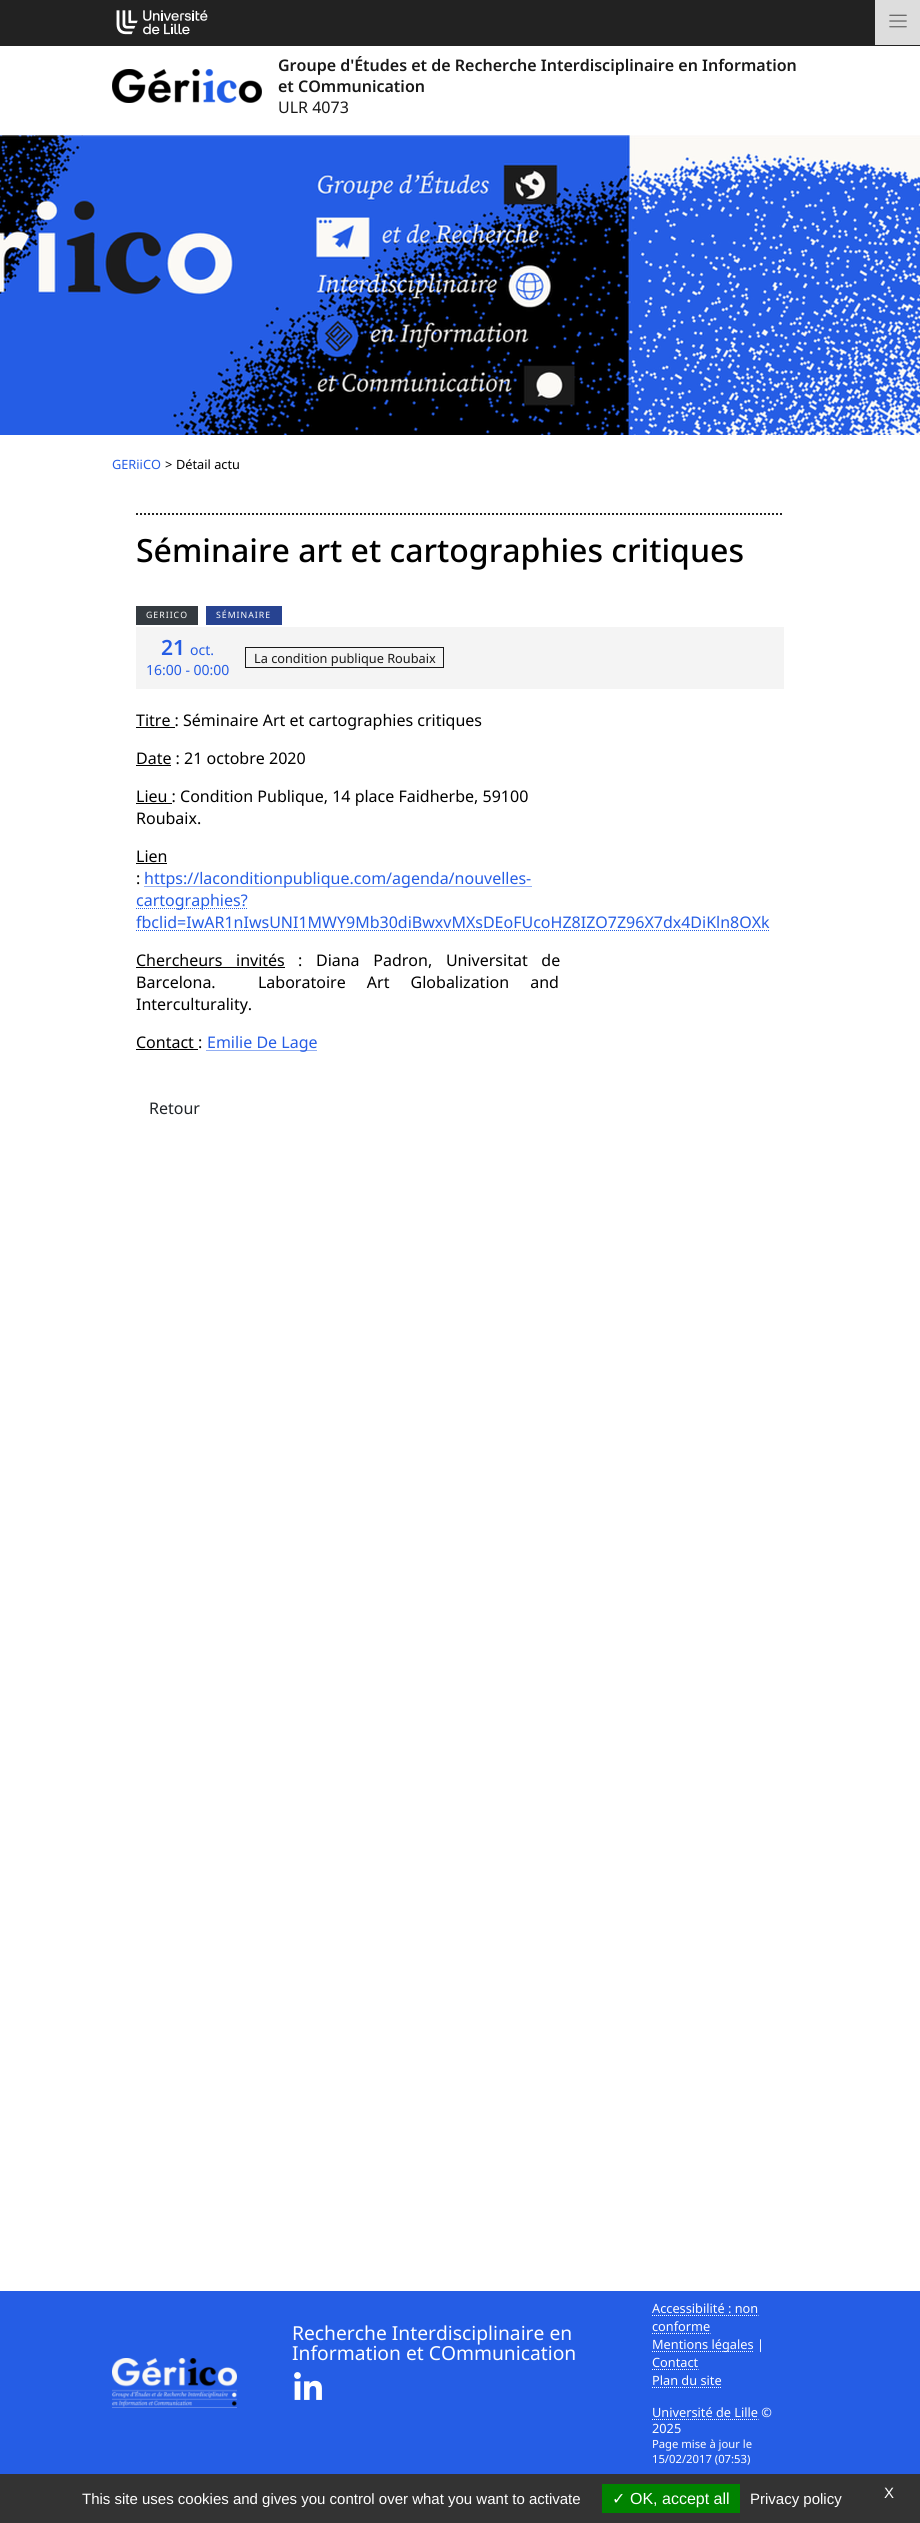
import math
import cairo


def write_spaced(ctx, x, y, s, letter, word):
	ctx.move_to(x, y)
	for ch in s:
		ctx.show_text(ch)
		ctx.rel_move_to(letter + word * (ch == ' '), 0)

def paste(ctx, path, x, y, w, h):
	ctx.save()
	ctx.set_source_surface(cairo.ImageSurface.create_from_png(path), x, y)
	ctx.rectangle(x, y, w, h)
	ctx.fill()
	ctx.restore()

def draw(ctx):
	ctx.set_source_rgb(1, 1, 1)
	ctx.paint()
	ctx.set_source_rgb(0.133, 0.133, 0.133)
	ctx.rectangle(0, 0, 920, 46)
	ctx.fill()
	paste(ctx, 'media/1.png', 116, 10, 92, 25)
	ctx.set_source_rgb(0.867, 0.867, 0.867)
	ctx.rectangle(875, 0, 45, 45)
	ctx.fill()
	paste(ctx, 'media/2.png', 889, 14, 18, 14)
	paste(ctx, 'media/3.png', 112, 69, 150, 34)
	ctx.select_font_face('Noto Sans SemiBold')
	ctx.set_font_size(16)
	ctx.set_source_rgb(0.094, 0.094, 0.094)
	ctx.move_to(278, 71)
	ctx.show_text('Groupe d\'Études et de Recherche Interdisciplinaire en Information')
	ctx.move_to(278, 92)
	ctx.show_text('et COmmunication')
	ctx.select_font_face('Noto Sans')
	ctx.move_to(278, 113)
	ctx.show_text('ULR 4073')
	paste(ctx, 'media/4.png', 0, 135, 920, 300)
	ctx.set_font_size(12.75)
	ctx.set_source_rgb(0.145, 0.365, 0.898)
	ctx.move_to(112, 469)
	ctx.show_text('GERiiCO')
	ctx.set_source_rgb(0, 0, 0)
	ctx.move_to(165, 469)
	ctx.show_text('>')
	ctx.move_to(176, 469)
	ctx.show_text('Détail actu')
	ctx.new_path()
	ctx.move_to(136, 514)
	ctx.line_to(784, 514)
	ctx.set_source_rgb(0.133, 0.133, 0.133)
	ctx.set_dash([2, 2])
	ctx.stroke()
	ctx.select_font_face('Noto Sans Medium')
	ctx.set_font_size(32)
	ctx.set_source_rgb(0, 0, 0)
	ctx.move_to(136, 562)
	ctx.show_text('Séminaire art et cartographies critiques')
	ctx.set_source_rgb(0.204, 0.227, 0.251)
	ctx.rectangle(136, 606, 62, 19)
	ctx.fill()
	ctx.select_font_face('Noto Sans')
	ctx.set_font_size(8.75)
	ctx.set_source_rgb(1, 1, 1)
	write_spaced(ctx, 146, 618, 'GERIICO', 1, 0)
	ctx.set_source_rgb(0.153, 0.263, 0.569)
	ctx.rectangle(206, 606, 76, 19)
	ctx.fill()
	ctx.set_source_rgb(1, 1, 1)
	write_spaced(ctx, 216, 618, 'SÉMINAIRE', 1, 0)
	ctx.set_source_rgb(0.957, 0.957, 0.957)
	ctx.rectangle(136, 627, 648, 62)
	ctx.fill()
	ctx.select_font_face('Noto Sans SemiBold')
	ctx.set_font_size(21)
	ctx.set_source_rgb(0.145, 0.365, 0.898)
	ctx.move_to(161, 655)
	ctx.show_text('21')
	ctx.select_font_face('Noto Sans')
	ctx.set_font_size(14)
	ctx.move_to(190, 655)
	ctx.show_text('oct.')
	ctx.move_to(146, 675)
	ctx.show_text('16:00 - 00:00')
	ctx.rectangle(245.5, 647.5, 198, 20)
	ctx.set_source_rgb(0.094, 0.094, 0.094)
	ctx.set_line_width(1)
	ctx.set_dash([])
	ctx.stroke()
	ctx.set_font_size(12.75)
	ctx.move_to(254, 663)
	ctx.show_text('La condition publique Roubaix')
	ctx.set_source_rgb(0, 0, 0)
	ctx.rectangle(136, 727, 39, 1)
	ctx.fill()
	ctx.set_font_size(16)
	ctx.move_to(136, 726)
	ctx.show_text('Titre : Séminaire Art et cartographies critiques')
	ctx.move_to(136, 764)
	ctx.show_text('Date : 21 octobre 2020')
	ctx.rectangle(136, 765, 35, 1)
	ctx.fill()
	ctx.rectangle(136, 803, 36, 1)
	ctx.fill()
	for x, y, s in [
		(136, 802, 'Lieu : Condition Publique, 14 place Faidherbe, 59100'),
		(136, 824, 'Roubaix.'),
		(136, 862, 'Lien'),
	]:
		ctx.move_to(x, y)
		ctx.show_text(s)
	ctx.rectangle(136, 863, 31, 1)
	ctx.fill()
	ctx.move_to(136, 884)
	ctx.show_text(':')
	ctx.new_path()
	ctx.move_to(144.5, 886.5)
	ctx.line_to(531.5, 886.5)
	ctx.set_source_rgb(0.145, 0.365, 0.898)
	ctx.set_dash([1, 1])
	ctx.stroke()
	ctx.move_to(144, 884)
	ctx.show_text('https://laconditionpublique.com/agenda/nouvelles-')
	ctx.new_path()
	ctx.move_to(136, 908.5)
	ctx.line_to(247.5, 908.5)
	ctx.stroke()
	ctx.move_to(136, 906)
	ctx.show_text('cartographies?')
	ctx.move_to(136, 928)
	ctx.show_text('fbclid=IwAR1nIwsUNI1MWY9Mb30diBwxvMXsDEoFUcoHZ8IZO7Z96X7dx4DiKln8OXk')
	ctx.new_path()
	ctx.move_to(136, 930.5)
	ctx.line_to(769.5, 930.5)
	ctx.stroke()
	ctx.set_source_rgb(0, 0, 0)
	write_spaced(ctx, 136, 966, 'Chercheurs invités', 0, 9.5)
	ctx.rectangle(136, 967, 149, 1)
	ctx.fill()
	write_spaced(ctx, 298, 966, ': Diana Padron, Universitat de', 0, 9.5)
	write_spaced(ctx, 136, 988, 'Barcelona.  Laboratoire Art Globalization and', 0, 17)
	ctx.move_to(136, 1010)
	ctx.show_text('Interculturality.')
	ctx.move_to(136, 1048)
	ctx.show_text('Contact :')
	ctx.rectangle(136, 1049, 62, 1)
	ctx.fill()
	ctx.new_path()
	ctx.move_to(206.5, 1050.5)
	ctx.line_to(317, 1050.5)
	ctx.set_source_rgb(0.145, 0.365, 0.898)
	ctx.stroke()
	ctx.move_to(207, 1048)
	ctx.show_text('Emilie De Lage')
	ctx.set_source_rgb(0.129, 0.145, 0.161)
	ctx.move_to(149, 1114)
	ctx.show_text('Retour')
	ctx.set_source_rgb(0.145, 0.365, 0.898)
	ctx.rectangle(0, 2291, 920, 183)
	ctx.fill()
	ctx.set_font_size(19.25)
	ctx.set_source_rgb(1, 1, 1)
	ctx.move_to(292, 2340)
	ctx.show_text('Recherche Interdisciplinaire en')
	ctx.move_to(292, 2360)
	ctx.show_text('Information et COmmunication')
	paste(ctx, 'media/5.png', 294, 2372, 28, 28)
	ctx.set_font_size(12.75)
	ctx.move_to(652, 2313)
	ctx.show_text('Accessibilité : non')
	ctx.new_path()
	ctx.move_to(652, 2315.5)
	ctx.line_to(758.5, 2315.5)
	ctx.stroke()
	ctx.move_to(652, 2331)
	ctx.show_text('conforme')
	ctx.new_path()
	ctx.move_to(652, 2333.5)
	ctx.line_to(710.5, 2333.5)
	ctx.stroke()
	ctx.new_path()
	ctx.move_to(652, 2351.5)
	ctx.line_to(754, 2351.5)
	ctx.stroke()
	ctx.move_to(652, 2349)
	ctx.show_text('Mentions légales |')
	ctx.move_to(652, 2367)
	ctx.show_text('Contact')
	ctx.new_path()
	ctx.move_to(652, 2369.5)
	ctx.line_to(698.5, 2369.5)
	ctx.stroke()
	ctx.move_to(652, 2385)
	ctx.show_text('Plan du site')
	ctx.new_path()
	ctx.move_to(652, 2387.5)
	ctx.line_to(722, 2387.5)
	ctx.stroke()
	ctx.move_to(652, 2417)
	ctx.show_text('Université de Lille ©')
	ctx.new_path()
	ctx.move_to(652, 2419.5)
	ctx.line_to(758.5, 2419.5)
	ctx.stroke()
	ctx.move_to(652, 2433)
	ctx.show_text('2025')
	ctx.set_font_size(11.25)
	ctx.move_to(652, 2448)
	ctx.show_text('Page mise à jour le')
	ctx.move_to(652, 2463)
	ctx.show_text('15/02/2017 (07:53)')
	paste(ctx, 'media/6.png', 112, 2358, 125, 50)
	ctx.set_source_rgb(0.2, 0.2, 0.2)
	ctx.rectangle(0, 2474, 920, 49)
	ctx.fill()
	ctx.select_font_face('Liberation Sans')
	ctx.set_font_size(15)
	ctx.set_source_rgb(1, 1, 1)
	ctx.move_to(82, 2504)
	ctx.show_text('This site uses cookies and gives you control over what you want to activate')
	ctx.set_source_rgb(0, 0.514, 0)
	ctx.rectangle(602, 2484, 138, 29)
	ctx.fill()
	ctx.select_font_face('DejaVu Sans')
	ctx.set_font_size(16)
	ctx.set_source_rgb(1, 1, 1)
	ctx.move_to(612, 2504)
	ctx.show_text('✓')
	ctx.select_font_face('Liberation Sans')
	ctx.move_to(630, 2504)
	ctx.show_text('OK, accept all')
	ctx.set_font_size(15)
	ctx.move_to(750, 2504)
	ctx.show_text('Privacy policy')
	ctx.move_to(884, 2498)
	ctx.show_text('X')


surface = cairo.ImageSurface(cairo.FORMAT_RGB24, 920, 2523)
ctx = cairo.Context(surface)
options = cairo.FontOptions()
options.set_hint_metrics(cairo.HINT_METRICS_OFF)
options.set_hint_style(cairo.HINT_STYLE_NONE)
ctx.set_font_options(options)
ctx.set_miter_limit(4)
draw(ctx)
surface.write_to_png('image.png')
